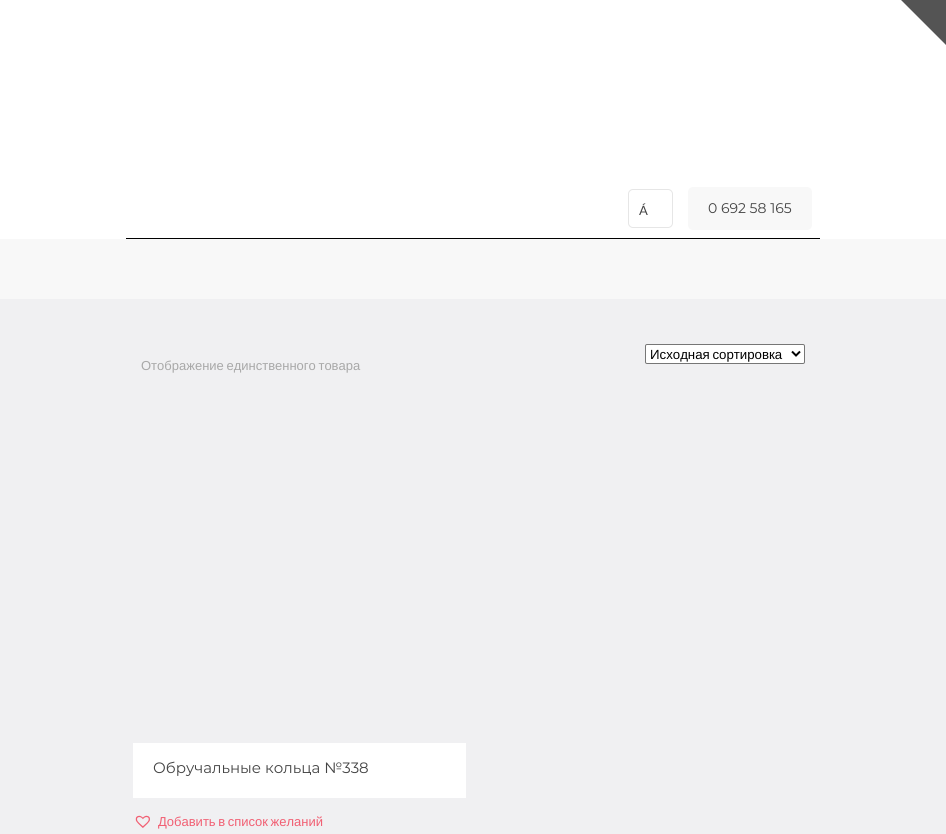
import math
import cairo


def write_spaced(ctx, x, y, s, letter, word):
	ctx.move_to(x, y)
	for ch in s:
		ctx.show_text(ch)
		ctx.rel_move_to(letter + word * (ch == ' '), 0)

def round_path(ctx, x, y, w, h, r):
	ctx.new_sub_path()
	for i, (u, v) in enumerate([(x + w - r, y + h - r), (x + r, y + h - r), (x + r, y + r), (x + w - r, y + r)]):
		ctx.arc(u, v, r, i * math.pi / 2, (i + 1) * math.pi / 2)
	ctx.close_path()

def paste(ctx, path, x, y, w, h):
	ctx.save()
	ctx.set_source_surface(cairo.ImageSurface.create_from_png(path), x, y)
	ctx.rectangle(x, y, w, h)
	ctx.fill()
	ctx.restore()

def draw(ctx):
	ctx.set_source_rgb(0.941, 0.941, 0.949)
	ctx.paint()
	ctx.set_source_rgb(1, 1, 1)
	ctx.rectangle(0, 0, 946, 239)
	ctx.fill()
	ctx.set_source_rgb(0.329, 0.329, 0.329)
	ctx.new_path()
	ctx.move_to(946, 0)
	ctx.line_to(946, 45)
	ctx.line_to(901, 0)
	ctx.close_path()
	ctx.fill()
	round_path(ctx, 628.5, 189.5, 44, 38, 4.5)
	ctx.set_source_rgb(0.902, 0.902, 0.902)
	ctx.set_line_width(1)
	ctx.stroke()
	ctx.select_font_face('Lato')
	ctx.set_font_size(13)
	ctx.set_source_rgb(0.267, 0.267, 0.267)
	ctx.move_to(639, 215)
	ctx.show_text('Á')
	ctx.set_source_rgb(0.969, 0.969, 0.969)
	round_path(ctx, 688, 187, 124, 43, 5)
	ctx.fill()
	ctx.select_font_face('Montserrat')
	ctx.set_font_size(14)
	ctx.set_source_rgb(0.267, 0.267, 0.267)
	ctx.move_to(708, 213)
	ctx.show_text('0 692 58 165')
	ctx.set_source_rgb(0, 0, 0)
	ctx.rectangle(126, 238, 694, 1)
	ctx.fill()
	ctx.set_source_rgb(0.969, 0.969, 0.969)
	ctx.rectangle(0, 239, 946, 60)
	ctx.fill()
	ctx.set_source_rgb(1, 1, 1)
	round_path(ctx, 645.5, 344.5, 159, 19, 1.5)
	ctx.fill_preserve()
	ctx.set_source_rgb(0.463, 0.463, 0.463)
	ctx.stroke()
	ctx.new_path()
	ctx.move_to(792, 351.5)
	ctx.line_to(796, 355.5)
	ctx.line_to(800, 351.5)
	ctx.set_source_rgb(0, 0, 0)
	ctx.set_line_width(2)
	ctx.stroke()
	ctx.select_font_face('Liberation Sans')
	ctx.set_font_size(13.25)
	write_spaced(ctx, 650, 359, 'Исходная сортировка', 0, -1)
	ctx.set_font_size(13)
	ctx.set_source_rgb(0.659, 0.659, 0.659)
	write_spaced(ctx, 141, 370, 'Отображение единственного товара', 0, -1)
	ctx.set_source_rgb(1, 1, 1)
	ctx.rectangle(133, 743, 333, 55)
	ctx.fill()
	ctx.select_font_face('Montserrat')
	ctx.set_font_size(15)
	ctx.set_source_rgb(0.267, 0.267, 0.267)
	ctx.move_to(153, 773)
	ctx.show_text('Обручальные кольца №338')
	paste(ctx, 'media/1.png', 135, 815, 15, 13)
	ctx.select_font_face('Liberation Sans')
	ctx.set_font_size(13)
	ctx.set_source_rgb(0.945, 0.373, 0.451)
	write_spaced(ctx, 158, 826, 'Добавить в список желаний', 0, -1)


surface = cairo.ImageSurface(cairo.FORMAT_RGB24, 946, 834)
ctx = cairo.Context(surface)
options = cairo.FontOptions()
options.set_hint_metrics(cairo.HINT_METRICS_OFF)
options.set_hint_style(cairo.HINT_STYLE_NONE)
ctx.set_font_options(options)
ctx.set_miter_limit(4)
draw(ctx)
surface.write_to_png('image.png')
